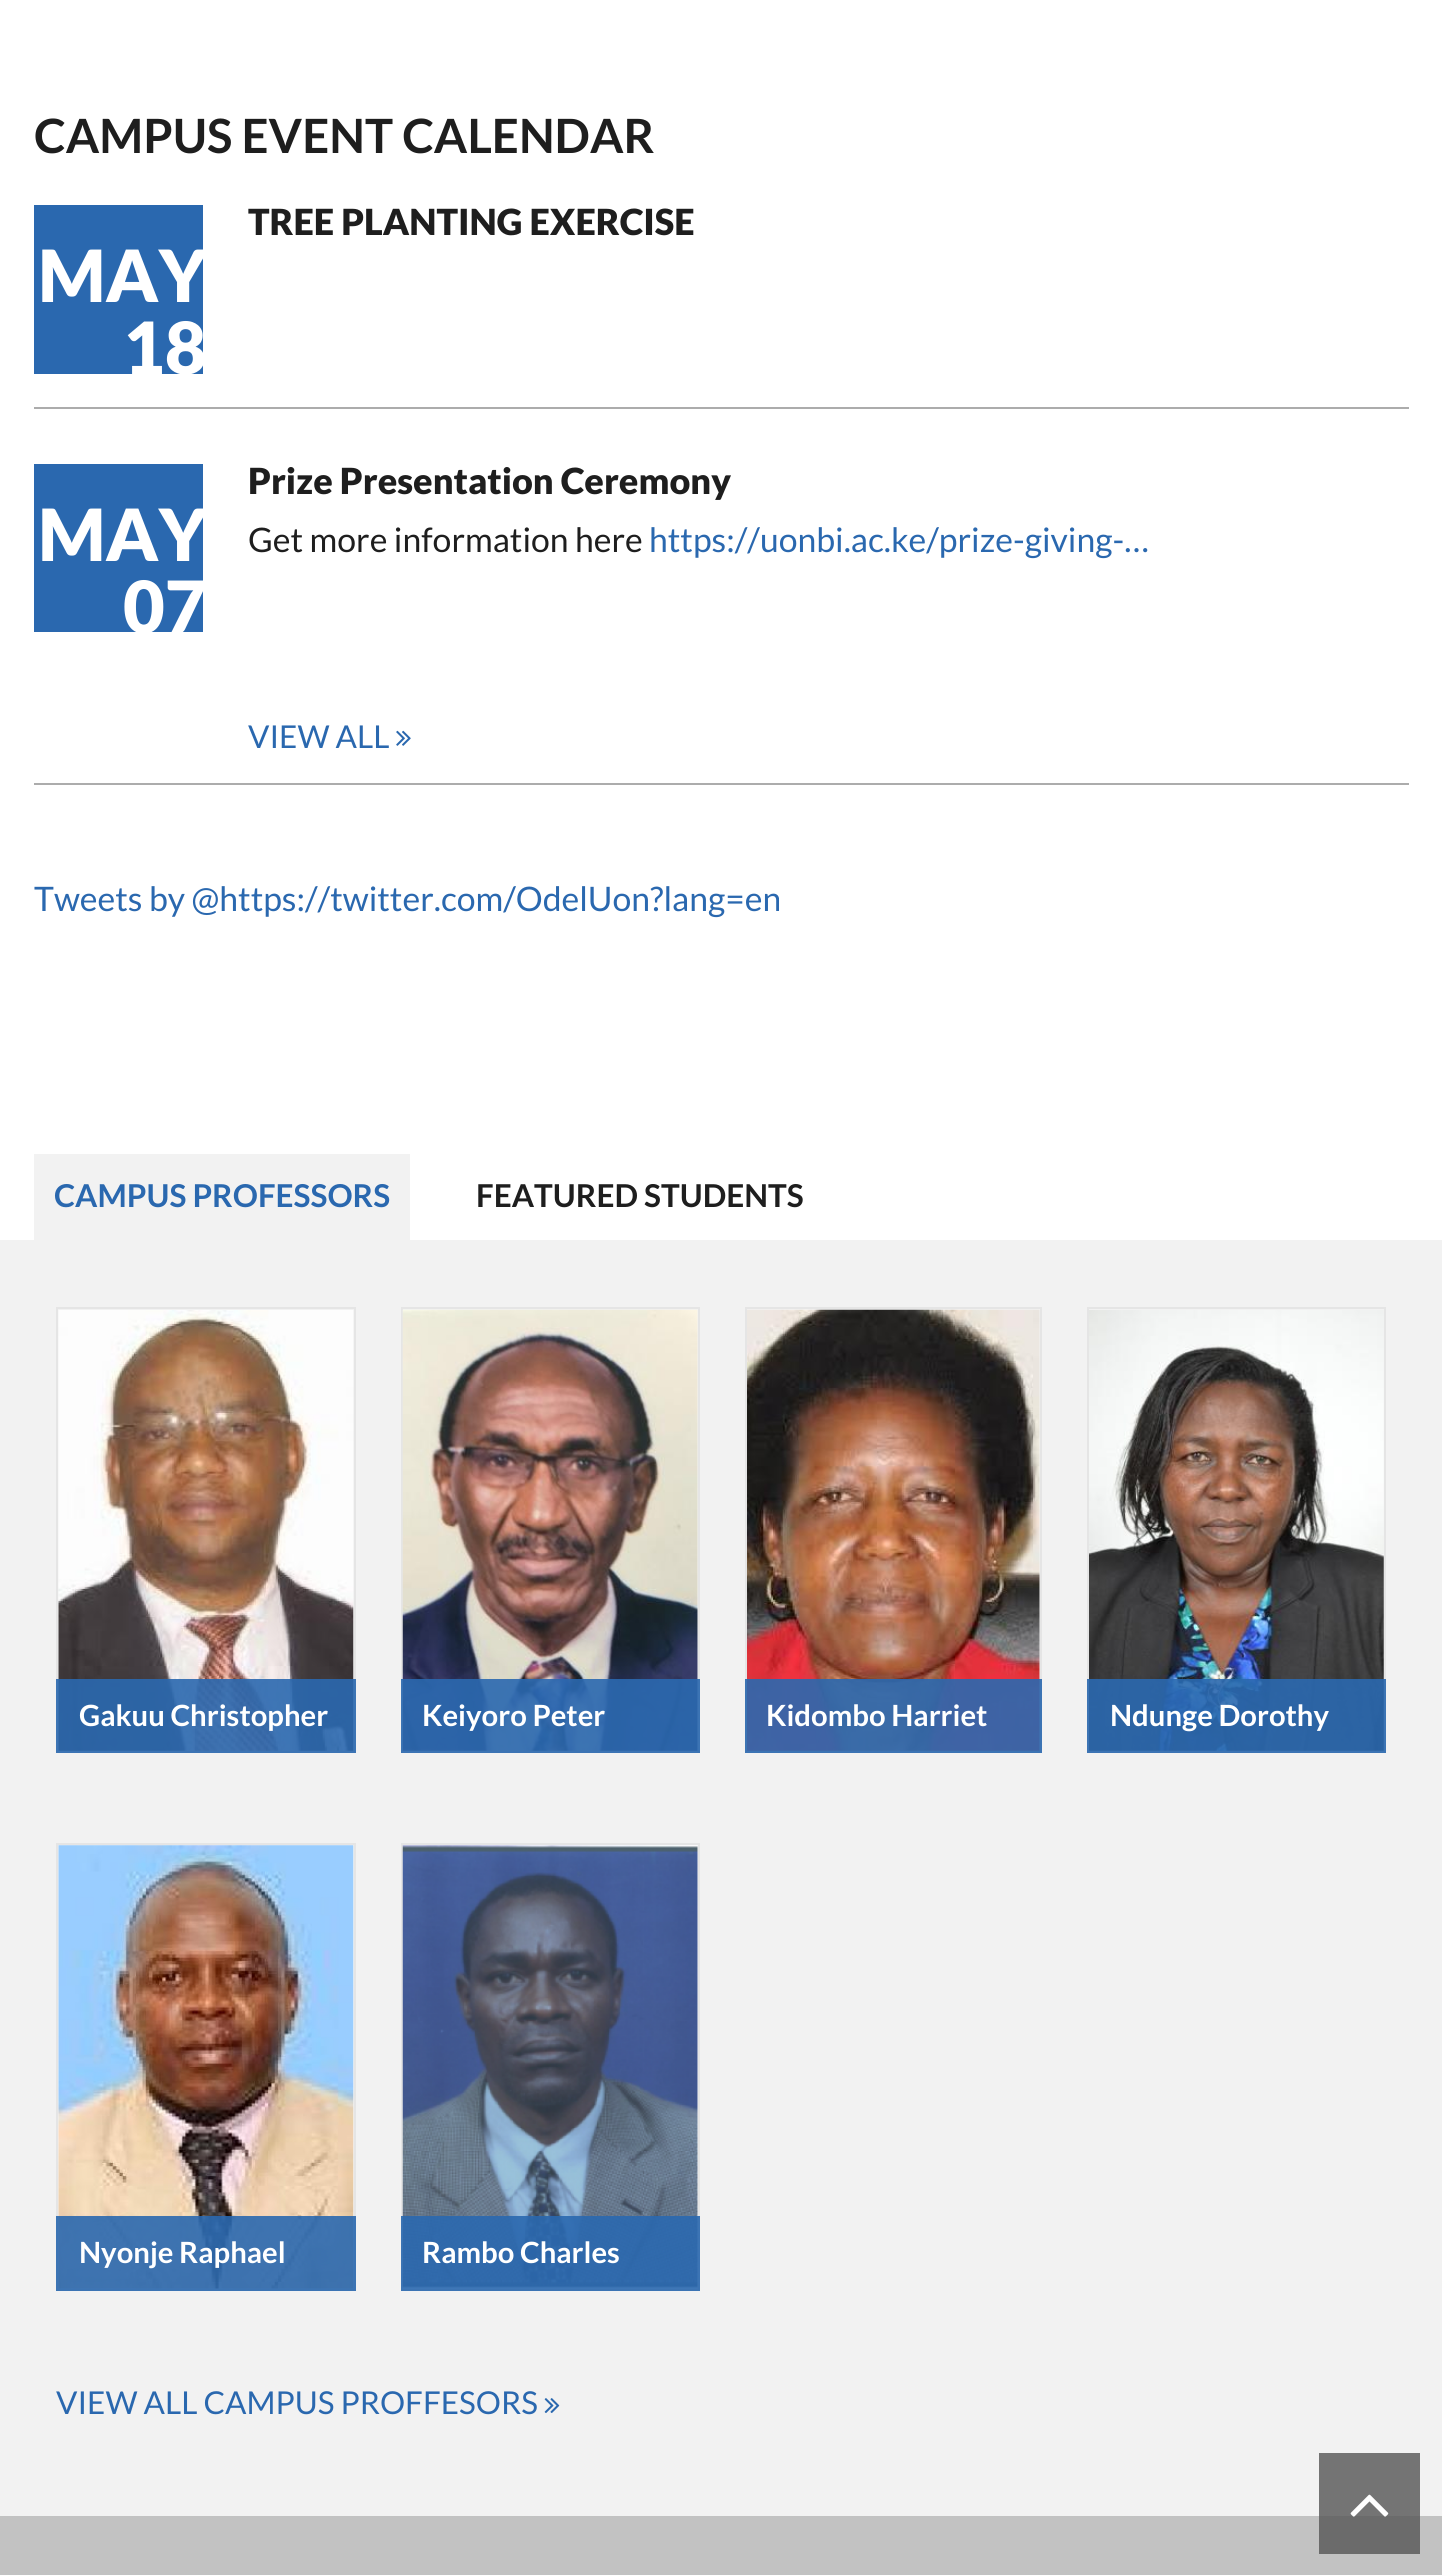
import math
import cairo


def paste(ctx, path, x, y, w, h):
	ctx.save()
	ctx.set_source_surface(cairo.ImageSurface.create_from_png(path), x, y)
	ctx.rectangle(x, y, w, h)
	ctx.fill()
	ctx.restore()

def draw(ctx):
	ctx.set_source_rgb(1, 1, 1)
	ctx.paint()
	ctx.select_font_face('Lato', cairo.FONT_SLANT_NORMAL, cairo.FONT_WEIGHT_BOLD)
	ctx.set_font_size(47.25)
	ctx.set_source_rgb(0.118, 0.118, 0.118)
	ctx.move_to(34, 153)
	ctx.show_text('CAMPUS EVENT CALENDAR')
	ctx.set_source_rgb(0.675, 0.675, 0.675)
	ctx.rectangle(34, 783, 1375, 2)
	ctx.fill()
	ctx.rectangle(34, 407, 1375, 2)
	ctx.fill()
	ctx.select_font_face('Lato Black')
	ctx.set_font_size(36)
	ctx.set_source_rgb(0.118, 0.118, 0.118)
	ctx.move_to(248, 235)
	ctx.show_text('TREE PLANTING EXERCISE')
	ctx.set_source_rgb(0.165, 0.408, 0.686)
	ctx.rectangle(34, 205, 169, 169)
	ctx.fill()
	ctx.set_font_size(72)
	ctx.set_source_rgb(1, 1, 1)
	ctx.move_to(38, 302)
	ctx.show_text('MAY')
	ctx.move_to(123, 374)
	ctx.show_text('18')
	ctx.set_font_size(36)
	ctx.set_source_rgb(0.118, 0.118, 0.118)
	ctx.move_to(248, 494)
	ctx.show_text('Prize Presentation Ceremony')
	ctx.set_source_rgb(0.165, 0.408, 0.686)
	ctx.rectangle(34, 464, 169, 168)
	ctx.fill()
	ctx.set_font_size(72)
	ctx.set_source_rgb(1, 1, 1)
	ctx.move_to(38, 561)
	ctx.show_text('MAY')
	ctx.move_to(123, 633)
	ctx.show_text('07')
	ctx.select_font_face('Lato')
	ctx.set_font_size(33.75)
	ctx.set_source_rgb(0.118, 0.118, 0.118)
	ctx.move_to(248, 552)
	ctx.show_text('Get more information here')
	ctx.set_source_rgb(0.165, 0.408, 0.686)
	ctx.move_to(649, 552)
	ctx.show_text('https://uonbi.ac.ke/prize-giving-…')
	ctx.set_font_size(31.5)
	ctx.move_to(248, 748)
	ctx.show_text('VIEW ALL')
	paste(ctx, 'media/1.png', 396, 730, 15, 16)
	ctx.set_font_size(33.75)
	ctx.move_to(34, 911)
	ctx.show_text('Tweets by @https://twitter.com/OdelUon?lang=en')
	ctx.set_source_rgb(0.949, 0.949, 0.949)
	ctx.rectangle(0, 1240, 1442, 1276)
	ctx.fill()
	ctx.set_source_rgb(0.455, 0.455, 0.455)
	ctx.rectangle(1319, 2453, 101, 63)
	ctx.fill()
	ctx.set_source_rgb(0.949, 0.949, 0.949)
	ctx.rectangle(34, 1154, 376, 86)
	ctx.fill()
	ctx.select_font_face('Lato', cairo.FONT_SLANT_NORMAL, cairo.FONT_WEIGHT_BOLD)
	ctx.set_font_size(31.5)
	ctx.set_source_rgb(0.165, 0.408, 0.686)
	ctx.move_to(54, 1207)
	ctx.show_text('CAMPUS PROFESSORS')
	ctx.set_source_rgb(0.118, 0.118, 0.118)
	ctx.move_to(476, 1207)
	ctx.show_text('FEATURED STUDENTS')
	ctx.rectangle(57, 1308, 298, 444)
	ctx.set_source_rgb(0.898, 0.898, 0.898)
	ctx.stroke()
	paste(ctx, 'media/2.png', 58, 1310, 296, 441)
	ctx.set_source_rgba(0.165, 0.408, 0.686, 0.9)
	ctx.rectangle(56, 1679, 300, 74)
	ctx.fill()
	ctx.set_font_size(29.25)
	ctx.set_source_rgb(1, 1, 1)
	ctx.move_to(79, 1726)
	ctx.show_text('Gakuu Christopher')
	ctx.rectangle(402, 1308, 297, 444)
	ctx.set_source_rgb(0.898, 0.898, 0.898)
	ctx.stroke()
	paste(ctx, 'media/3.png', 402, 1309, 296, 442)
	ctx.set_source_rgba(0.165, 0.408, 0.686, 0.9)
	ctx.rectangle(401, 1679, 299, 74)
	ctx.fill()
	ctx.set_source_rgb(1, 1, 1)
	ctx.move_to(422, 1726)
	ctx.show_text('Keiyoro Peter')
	ctx.rectangle(746, 1308, 295, 444)
	ctx.set_source_rgb(0.898, 0.898, 0.898)
	ctx.stroke()
	paste(ctx, 'media/4.png', 747, 1309, 293, 442)
	ctx.set_source_rgba(0.165, 0.408, 0.686, 0.9)
	ctx.rectangle(745, 1679, 297, 74)
	ctx.fill()
	ctx.set_source_rgb(1, 1, 1)
	ctx.move_to(766, 1726)
	ctx.show_text('Kidombo Harriet')
	ctx.rectangle(1088, 1308, 297, 444)
	ctx.set_source_rgb(0.898, 0.898, 0.898)
	ctx.stroke()
	paste(ctx, 'media/5.png', 1089, 1310, 295, 441)
	ctx.set_source_rgba(0.165, 0.408, 0.686, 0.9)
	ctx.rectangle(1087, 1679, 299, 74)
	ctx.fill()
	ctx.set_source_rgb(1, 1, 1)
	ctx.move_to(1110, 1726)
	ctx.show_text('Ndunge Dorothy')
	ctx.rectangle(57, 1844, 298, 446)
	ctx.set_source_rgb(0.898, 0.898, 0.898)
	ctx.stroke()
	paste(ctx, 'media/6.png', 58, 1845, 296, 444)
	ctx.set_source_rgba(0.165, 0.408, 0.686, 0.9)
	ctx.rectangle(56, 2216, 300, 75)
	ctx.fill()
	ctx.set_source_rgb(1, 1, 1)
	ctx.move_to(79, 2263)
	ctx.show_text('Nyonje Raphael')
	ctx.rectangle(402, 1844, 297, 446)
	ctx.set_source_rgb(0.898, 0.898, 0.898)
	ctx.stroke()
	paste(ctx, 'media/7.png', 402, 1845, 296, 444)
	ctx.set_source_rgba(0.165, 0.408, 0.686, 0.9)
	ctx.rectangle(401, 2216, 299, 75)
	ctx.fill()
	ctx.set_source_rgb(1, 1, 1)
	ctx.move_to(422, 2263)
	ctx.show_text('Rambo Charles')
	ctx.select_font_face('Lato')
	ctx.set_font_size(31.5)
	ctx.set_source_rgb(0.165, 0.408, 0.686)
	ctx.move_to(56, 2414)
	ctx.show_text('VIEW ALL CAMPUS PROFFESORS')
	paste(ctx, 'media/8.png', 544, 2398, 16, 15)
	ctx.set_source_rgb(0.761, 0.761, 0.761)
	ctx.rectangle(0, 2516, 1442, 59)
	ctx.fill()
	ctx.set_source_rgb(0.42, 0.42, 0.42)
	ctx.rectangle(1319, 2516, 101, 38)
	ctx.fill()
	paste(ctx, 'media/9.png', 1350, 2494, 39, 23)


surface = cairo.ImageSurface(cairo.FORMAT_RGB24, 1442, 2575)
ctx = cairo.Context(surface)
options = cairo.FontOptions()
options.set_hint_metrics(cairo.HINT_METRICS_OFF)
options.set_hint_style(cairo.HINT_STYLE_NONE)
ctx.set_font_options(options)
ctx.set_miter_limit(4)
draw(ctx)
surface.write_to_png('image.png')
